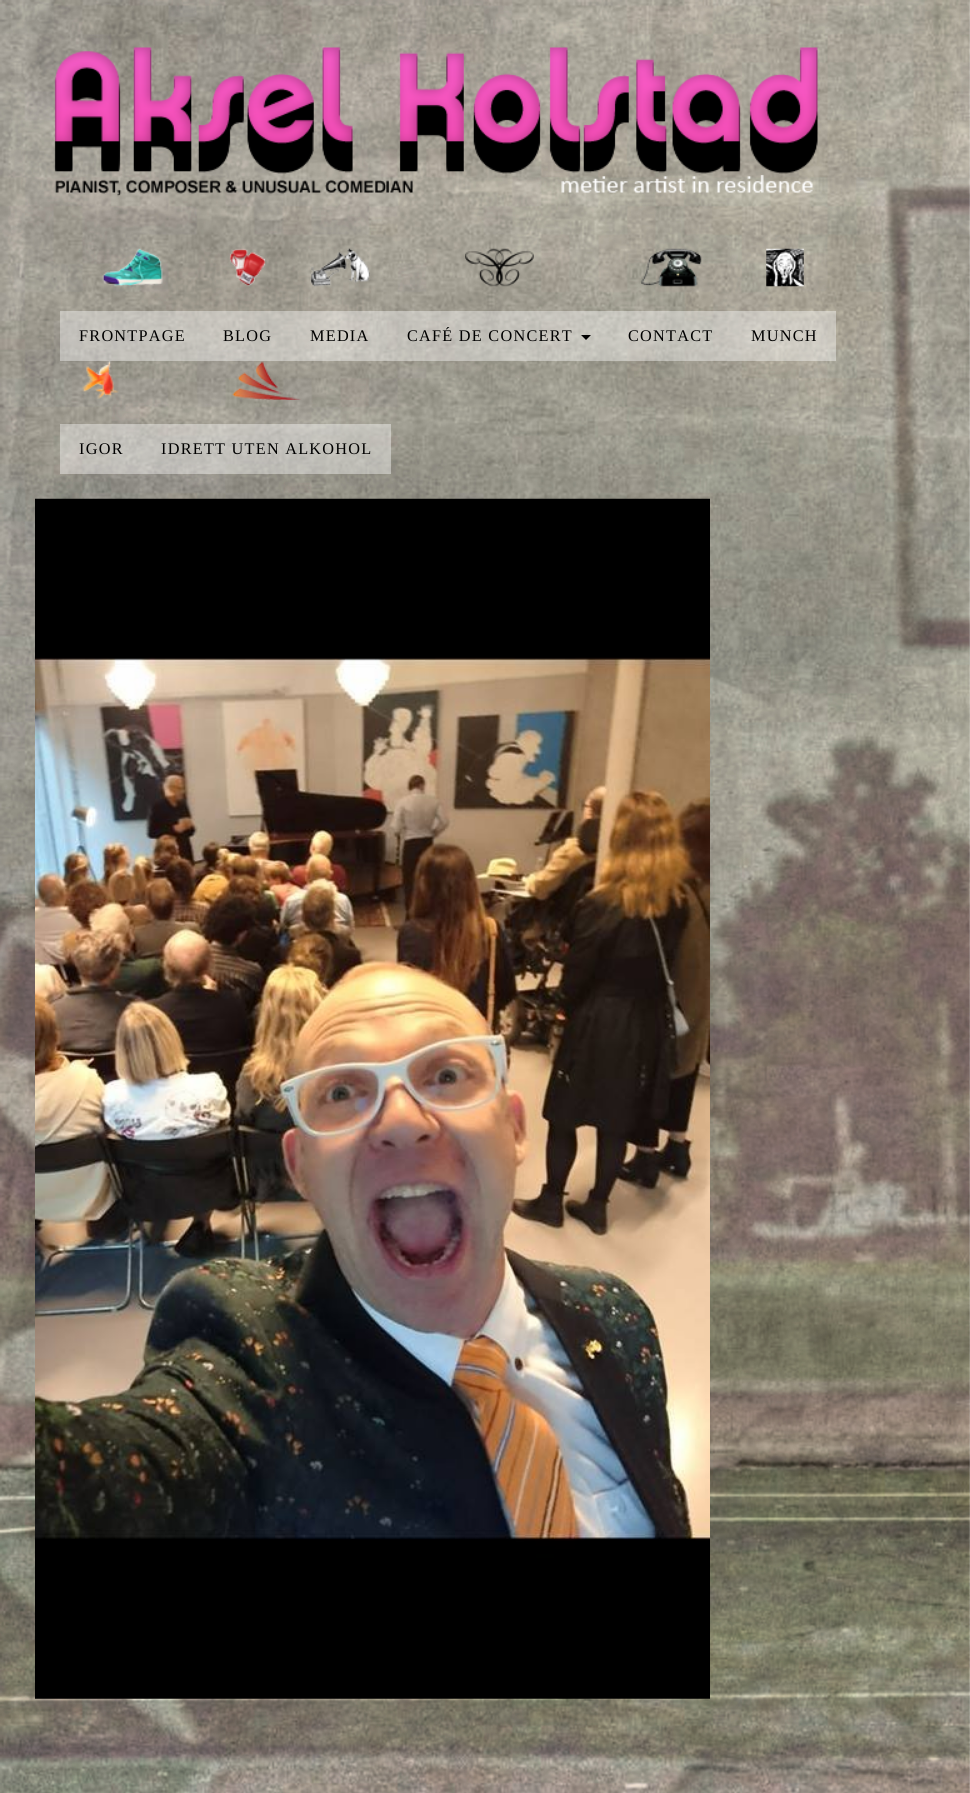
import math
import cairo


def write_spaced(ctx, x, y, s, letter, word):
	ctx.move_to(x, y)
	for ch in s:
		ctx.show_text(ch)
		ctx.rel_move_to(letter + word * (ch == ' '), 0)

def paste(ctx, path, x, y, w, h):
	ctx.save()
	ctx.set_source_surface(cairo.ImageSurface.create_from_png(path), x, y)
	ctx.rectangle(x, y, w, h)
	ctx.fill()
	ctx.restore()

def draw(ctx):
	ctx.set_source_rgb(1, 1, 1)
	ctx.paint()
	paste(ctx, 'media/1.png', 0, 0, 970, 1793)
	paste(ctx, 'media/2.png', 54, 47, 764, 150)
	paste(ctx, 'media/3.png', 102, 248, 61, 39)
	ctx.set_source_rgba(1, 1, 1, 0.4)
	ctx.rectangle(60, 311, 145, 50)
	ctx.fill()
	ctx.select_font_face('Liberation Serif')
	ctx.set_font_size(16.25)
	ctx.set_source_rgb(0, 0, 0)
	write_spaced(ctx, 79, 341, 'FRONTPAGE', 1.25, 0)
	paste(ctx, 'media/4.png', 229, 248, 37, 39)
	ctx.set_source_rgba(1, 1, 1, 0.4)
	ctx.rectangle(205, 311, 86, 50)
	ctx.fill()
	ctx.set_source_rgb(0, 0, 0)
	write_spaced(ctx, 223, 341, 'BLOG', 1.25, 0)
	paste(ctx, 'media/5.png', 310, 248, 60, 39)
	ctx.set_source_rgba(1, 1, 1, 0.4)
	ctx.rectangle(291, 311, 98, 50)
	ctx.fill()
	ctx.set_source_rgb(0, 0, 0)
	write_spaced(ctx, 310, 341, 'MEDIA', 1.25, 0)
	paste(ctx, 'media/6.png', 465, 248, 69, 39)
	ctx.set_source_rgba(1, 1, 1, 0.4)
	ctx.rectangle(389, 311, 221, 50)
	ctx.fill()
	ctx.set_source_rgb(0, 0, 0)
	write_spaced(ctx, 407, 341, 'CAFÉ DE CONCERT', 1.25, 0)
	ctx.new_path()
	ctx.move_to(581, 335)
	ctx.line_to(591, 335)
	ctx.line_to(586, 340)
	ctx.close_path()
	ctx.fill()
	paste(ctx, 'media/7.png', 641, 248, 61, 39)
	ctx.set_source_rgba(1, 1, 1, 0.4)
	ctx.rectangle(610, 311, 123, 50)
	ctx.fill()
	ctx.set_source_rgb(0, 0, 0)
	write_spaced(ctx, 628, 341, 'CONTACT', 1.25, 0)
	paste(ctx, 'media/8.png', 766, 248, 38, 39)
	ctx.set_source_rgba(1, 1, 1, 0.4)
	ctx.rectangle(733, 311, 103, 50)
	ctx.fill()
	ctx.set_source_rgb(0, 0, 0)
	write_spaced(ctx, 751, 341, 'MUNCH', 1.25, 0)
	paste(ctx, 'media/9.png', 82, 361, 37, 38)
	ctx.set_source_rgba(1, 1, 1, 0.4)
	ctx.rectangle(60, 424, 83, 50)
	ctx.fill()
	ctx.set_source_rgb(0, 0, 0)
	write_spaced(ctx, 79, 454, 'IGOR', 1.25, 0)
	paste(ctx, 'media/10.png', 232, 361, 69, 39)
	ctx.set_source_rgba(1, 1, 1, 0.4)
	ctx.rectangle(143, 424, 248, 50)
	ctx.fill()
	ctx.set_source_rgb(0, 0, 0)
	write_spaced(ctx, 161, 454, 'IDRETT UTEN ALKOHOL', 1.25, 0)
	paste(ctx, 'media/11.png', 35, 498, 675, 1201)


surface = cairo.ImageSurface(cairo.FORMAT_RGB24, 970, 1793)
ctx = cairo.Context(surface)
options = cairo.FontOptions()
options.set_hint_metrics(cairo.HINT_METRICS_OFF)
options.set_hint_style(cairo.HINT_STYLE_NONE)
ctx.set_font_options(options)
ctx.set_miter_limit(4)
draw(ctx)
surface.write_to_png('image.png')
